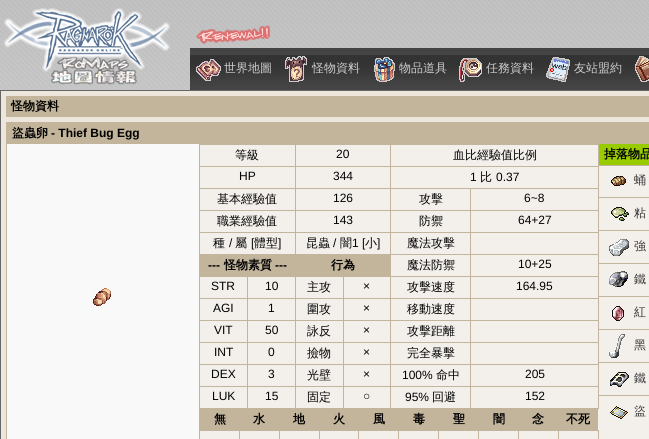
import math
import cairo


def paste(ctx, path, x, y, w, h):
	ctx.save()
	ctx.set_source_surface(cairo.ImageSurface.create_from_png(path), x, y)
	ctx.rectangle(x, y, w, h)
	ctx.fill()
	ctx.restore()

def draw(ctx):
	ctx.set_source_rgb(1, 1, 1)
	ctx.paint()
	paste(ctx, 'media/1.png', 300, 0, 349, 48)
	paste(ctx, 'media/2.png', 0, 0, 300, 90)
	paste(ctx, 'media/3.png', 190, 48, 88, 42)
	paste(ctx, 'media/4.png', 196, 59, 25, 22)
	ctx.select_font_face('WenQuanYi Zen Hei Medium')
	ctx.set_font_size(12)
	ctx.set_source_rgb(0.8, 0.8, 0.8)
	ctx.move_to(224, 72)
	ctx.show_text('世界地圖')
	paste(ctx, 'media/3.png', 278, 48, 88, 42)
	paste(ctx, 'media/5.png', 285, 56, 22, 26)
	ctx.move_to(312, 72)
	ctx.show_text('怪物資料')
	paste(ctx, 'media/6.png', 366, 48, 87, 42)
	paste(ctx, 'media/7.png', 374, 57, 21, 25)
	ctx.move_to(399, 72)
	ctx.show_text('物品道具')
	paste(ctx, 'media/6.png', 453, 48, 87, 42)
	paste(ctx, 'media/8.png', 459, 58, 23, 24)
	ctx.move_to(486, 72)
	ctx.show_text('任務資料')
	paste(ctx, 'media/3.png', 540, 48, 88, 42)
	paste(ctx, 'media/9.png', 546, 57, 24, 25)
	ctx.move_to(574, 72)
	ctx.show_text('友站盟約')
	paste(ctx, 'media/10.png', 628, 48, 21, 42)
	paste(ctx, 'media/11.png', 635, 56, 14, 26)
	ctx.set_source_rgb(0.925, 0.902, 0.867)
	ctx.rectangle(0.5, 90.5, 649, 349)
	ctx.fill_preserve()
	ctx.set_source_rgb(0.4, 0.4, 0.4)
	ctx.set_line_width(1)
	ctx.stroke()
	ctx.set_source_rgb(0.761, 0.71, 0.612)
	ctx.rectangle(6, 96, 643, 21)
	ctx.fill()
	ctx.select_font_face('WenQuanYi Zen Hei', cairo.FONT_SLANT_NORMAL, cairo.FONT_WEIGHT_BOLD)
	ctx.set_source_rgb(0, 0, 0)
	ctx.move_to(11, 110)
	ctx.show_text('怪物資料')
	ctx.rectangle(6.5, 122.5, 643, 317)
	ctx.set_source_rgb(0.761, 0.71, 0.612)
	ctx.stroke()
	ctx.rectangle(7, 123, 642, 21)
	ctx.fill()
	ctx.set_source_rgb(0, 0, 0)
	ctx.move_to(12, 137)
	ctx.show_text('盜蟲卵')
	ctx.select_font_face('Liberation Sans', cairo.FONT_SLANT_NORMAL, cairo.FONT_WEIGHT_BOLD)
	ctx.move_to(51, 137)
	ctx.show_text('- Thief Bug Egg')
	ctx.set_source_rgb(0.953, 0.941, 0.922)
	ctx.rectangle(200, 145, 449, 294)
	ctx.fill()
	ctx.set_source_rgb(0.973, 0.973, 0.973)
	ctx.rectangle(7, 144, 192, 295)
	ctx.fill()
	paste(ctx, 'media/12.png', 93, 288, 18, 18)
	ctx.set_source_rgb(0.761, 0.71, 0.612)
	ctx.rectangle(199, 144, 1, 295)
	ctx.rectangle(390, 144, 209, 1)
	ctx.rectangle(390, 166, 209, 1)
	ctx.rectangle(470, 188, 129, 1)
	ctx.rectangle(470, 210, 129, 1)
	ctx.rectangle(470, 232, 129, 1)
	ctx.rectangle(470, 254, 129, 1)
	ctx.rectangle(200, 255, 191, 22)
	ctx.rectangle(470, 276, 129, 1)
	ctx.rectangle(470, 298, 129, 1)
	ctx.rectangle(470, 320, 129, 1)
	ctx.rectangle(470, 342, 129, 1)
	ctx.rectangle(470, 364, 129, 1)
	ctx.rectangle(470, 386, 129, 1)
	ctx.rectangle(598, 386, 1, 23)
	ctx.rectangle(470, 408, 129, 1)
	ctx.rectangle(470, 386, 1, 23)
	ctx.rectangle(390, 386, 81, 1)
	ctx.rectangle(470, 364, 1, 23)
	ctx.rectangle(390, 364, 81, 1)
	ctx.rectangle(470, 342, 1, 23)
	ctx.rectangle(390, 342, 81, 1)
	ctx.rectangle(470, 320, 1, 23)
	ctx.rectangle(390, 320, 81, 1)
	ctx.rectangle(470, 298, 1, 23)
	ctx.rectangle(390, 298, 81, 1)
	ctx.rectangle(470, 276, 1, 23)
	ctx.rectangle(390, 276, 81, 1)
	ctx.rectangle(470, 254, 1, 23)
	ctx.rectangle(390, 254, 81, 1)
	ctx.rectangle(470, 232, 1, 23)
	ctx.rectangle(390, 232, 81, 1)
	ctx.rectangle(470, 210, 1, 23)
	ctx.rectangle(390, 210, 81, 1)
	ctx.rectangle(470, 188, 1, 23)
	ctx.rectangle(390, 188, 81, 1)
	ctx.rectangle(390, 232, 1, 23)
	ctx.rectangle(295, 232, 96, 1)
	ctx.rectangle(390, 210, 1, 23)
	ctx.rectangle(295, 210, 96, 1)
	ctx.rectangle(390, 188, 1, 23)
	ctx.rectangle(295, 188, 96, 1)
	ctx.rectangle(390, 166, 1, 23)
	ctx.rectangle(295, 166, 96, 1)
	ctx.rectangle(390, 144, 1, 23)
	ctx.rectangle(295, 144, 96, 1)
	ctx.rectangle(295, 254, 96, 1)
	ctx.rectangle(295, 232, 1, 23)
	ctx.rectangle(199, 232, 97, 1)
	ctx.rectangle(295, 210, 1, 23)
	ctx.rectangle(199, 210, 97, 1)
	ctx.rectangle(295, 188, 1, 23)
	ctx.rectangle(199, 188, 97, 1)
	ctx.rectangle(295, 166, 1, 23)
	ctx.rectangle(199, 166, 97, 1)
	ctx.rectangle(295, 144, 1, 23)
	ctx.rectangle(199, 144, 97, 1)
	ctx.fill()
	ctx.select_font_face('WenQuanYi Zen Hei Medium')
	ctx.set_source_rgb(0, 0, 0)
	ctx.move_to(235, 159)
	ctx.show_text('等級')
	ctx.select_font_face('Liberation Sans')
	ctx.move_to(336, 158)
	ctx.show_text('20')
	ctx.set_source_rgb(0.761, 0.71, 0.612)
	ctx.rectangle(598, 364, 1, 23)
	ctx.rectangle(598, 342, 1, 23)
	ctx.rectangle(598, 320, 1, 23)
	ctx.rectangle(598, 298, 1, 23)
	ctx.rectangle(598, 276, 1, 23)
	ctx.rectangle(598, 254, 1, 23)
	ctx.rectangle(598, 232, 1, 23)
	ctx.rectangle(598, 210, 1, 23)
	ctx.rectangle(598, 188, 1, 23)
	ctx.rectangle(598, 166, 1, 23)
	ctx.rectangle(598, 144, 1, 23)
	ctx.fill()
	ctx.select_font_face('WenQuanYi Zen Hei Medium')
	ctx.set_source_rgb(0, 0, 0)
	ctx.move_to(453, 159)
	ctx.show_text('血比經驗值比例')
	ctx.select_font_face('Liberation Sans')
	for x, y, s in [
		(239, 180, 'HP'),
		(333, 180, '344'),
		(470, 181, '1'),
	]:
		ctx.move_to(x, y)
		ctx.show_text(s)
	ctx.select_font_face('WenQuanYi Zen Hei Medium')
	ctx.move_to(480, 181)
	ctx.show_text('比')
	ctx.select_font_face('Liberation Sans')
	ctx.move_to(496, 181)
	ctx.show_text('0.37')
	ctx.select_font_face('WenQuanYi Zen Hei Medium')
	ctx.move_to(217, 203)
	ctx.show_text('基本經驗值')
	ctx.select_font_face('Liberation Sans')
	ctx.move_to(333, 202)
	ctx.show_text('126')
	ctx.select_font_face('WenQuanYi Zen Hei Medium')
	ctx.move_to(419, 203)
	ctx.show_text('攻擊')
	ctx.select_font_face('Liberation Sans')
	ctx.move_to(524, 202)
	ctx.show_text('6~8')
	ctx.select_font_face('WenQuanYi Zen Hei Medium')
	ctx.move_to(217, 225)
	ctx.show_text('職業經驗值')
	ctx.select_font_face('Liberation Sans')
	ctx.move_to(333, 224)
	ctx.show_text('143')
	ctx.select_font_face('WenQuanYi Zen Hei Medium')
	ctx.move_to(419, 225)
	ctx.show_text('防禦')
	ctx.select_font_face('Liberation Sans')
	ctx.move_to(518, 224)
	ctx.show_text('64+27')
	ctx.set_source_rgb(0.761, 0.71, 0.612)
	ctx.rectangle(199, 254, 97, 1)
	ctx.fill()
	ctx.select_font_face('WenQuanYi Zen Hei Medium')
	ctx.set_source_rgb(0, 0, 0)
	ctx.move_to(213, 247)
	ctx.show_text('種')
	ctx.select_font_face('Liberation Sans')
	ctx.move_to(229, 247)
	ctx.show_text('/')
	ctx.select_font_face('WenQuanYi Zen Hei Medium')
	ctx.move_to(235, 247)
	ctx.show_text('屬')
	ctx.select_font_face('Liberation Sans')
	ctx.move_to(251, 247)
	ctx.show_text('[')
	ctx.select_font_face('WenQuanYi Zen Hei Medium')
	ctx.move_to(254, 247)
	ctx.show_text('體型')
	ctx.select_font_face('Liberation Sans')
	ctx.move_to(278, 247)
	ctx.show_text(']')
	ctx.select_font_face('WenQuanYi Zen Hei Medium')
	ctx.move_to(306, 247)
	ctx.show_text('昆蟲')
	ctx.select_font_face('Liberation Sans')
	ctx.move_to(333, 247)
	ctx.show_text('/')
	ctx.select_font_face('WenQuanYi Zen Hei Medium')
	ctx.move_to(340, 247)
	ctx.show_text('闇')
	ctx.select_font_face('Liberation Sans')
	ctx.move_to(352, 247)
	ctx.show_text('1 [')
	ctx.select_font_face('WenQuanYi Zen Hei Medium')
	ctx.move_to(365, 247)
	ctx.show_text('小')
	ctx.select_font_face('Liberation Sans')
	ctx.move_to(377, 247)
	ctx.show_text(']')
	ctx.select_font_face('WenQuanYi Zen Hei Medium')
	ctx.move_to(407, 247)
	ctx.show_text('魔法攻擊')
	ctx.select_font_face('Liberation Sans', cairo.FONT_SLANT_NORMAL, cairo.FONT_WEIGHT_BOLD)
	ctx.move_to(208, 269)
	ctx.show_text('---')
	ctx.select_font_face('WenQuanYi Zen Hei', cairo.FONT_SLANT_NORMAL, cairo.FONT_WEIGHT_BOLD)
	ctx.move_to(224, 269)
	ctx.show_text('怪物素質')
	ctx.select_font_face('Liberation Sans', cairo.FONT_SLANT_NORMAL, cairo.FONT_WEIGHT_BOLD)
	ctx.move_to(275, 269)
	ctx.show_text('---')
	ctx.select_font_face('WenQuanYi Zen Hei', cairo.FONT_SLANT_NORMAL, cairo.FONT_WEIGHT_BOLD)
	ctx.move_to(331, 269)
	ctx.show_text('行為')
	ctx.select_font_face('WenQuanYi Zen Hei Medium')
	ctx.move_to(407, 269)
	ctx.show_text('魔法防禦')
	ctx.select_font_face('Liberation Sans')
	ctx.move_to(518, 268)
	ctx.show_text('10+25')
	ctx.move_to(211, 290)
	ctx.show_text('STR')
	ctx.set_source_rgb(0.761, 0.71, 0.612)
	ctx.rectangle(390, 408, 81, 1)
	ctx.rectangle(390, 386, 1, 23)
	ctx.rectangle(343, 386, 48, 1)
	ctx.rectangle(390, 364, 1, 23)
	ctx.rectangle(343, 364, 48, 1)
	ctx.rectangle(390, 342, 1, 23)
	ctx.rectangle(343, 342, 48, 1)
	ctx.rectangle(390, 320, 1, 23)
	ctx.rectangle(343, 320, 48, 1)
	ctx.rectangle(390, 298, 1, 23)
	ctx.rectangle(343, 298, 48, 1)
	ctx.rectangle(343, 408, 48, 1)
	ctx.rectangle(343, 386, 1, 23)
	ctx.rectangle(295, 386, 49, 1)
	ctx.rectangle(343, 364, 1, 23)
	ctx.rectangle(295, 364, 49, 1)
	ctx.rectangle(343, 342, 1, 23)
	ctx.rectangle(295, 342, 49, 1)
	ctx.rectangle(343, 320, 1, 23)
	ctx.rectangle(295, 320, 49, 1)
	ctx.rectangle(343, 298, 1, 23)
	ctx.rectangle(295, 298, 49, 1)
	ctx.rectangle(295, 408, 49, 1)
	ctx.rectangle(295, 386, 1, 23)
	ctx.rectangle(247, 386, 49, 1)
	ctx.rectangle(295, 364, 1, 23)
	ctx.rectangle(247, 364, 49, 1)
	ctx.rectangle(295, 342, 1, 23)
	ctx.rectangle(247, 342, 49, 1)
	ctx.rectangle(295, 320, 1, 23)
	ctx.rectangle(247, 320, 49, 1)
	ctx.rectangle(295, 298, 1, 23)
	ctx.rectangle(247, 298, 49, 1)
	ctx.rectangle(247, 408, 49, 1)
	ctx.rectangle(247, 386, 1, 23)
	ctx.rectangle(199, 386, 49, 1)
	ctx.rectangle(247, 364, 1, 23)
	ctx.rectangle(199, 364, 49, 1)
	ctx.rectangle(247, 342, 1, 23)
	ctx.rectangle(199, 342, 49, 1)
	ctx.rectangle(247, 320, 1, 23)
	ctx.rectangle(199, 320, 49, 1)
	ctx.rectangle(247, 298, 1, 23)
	ctx.rectangle(199, 298, 49, 1)
	ctx.rectangle(247, 276, 1, 23)
	ctx.fill()
	ctx.set_source_rgb(0, 0, 0)
	ctx.move_to(265, 290)
	ctx.show_text('10')
	ctx.set_source_rgb(0.761, 0.71, 0.612)
	ctx.rectangle(295, 276, 1, 23)
	ctx.fill()
	ctx.select_font_face('WenQuanYi Zen Hei Medium')
	ctx.set_source_rgb(0, 0, 0)
	ctx.move_to(307, 291)
	ctx.show_text('主攻')
	ctx.set_source_rgb(0.761, 0.71, 0.612)
	ctx.rectangle(343, 276, 1, 23)
	ctx.fill()
	ctx.select_font_face('Liberation Sans')
	ctx.set_source_rgb(0, 0, 0)
	ctx.move_to(363, 290)
	ctx.show_text('×')
	ctx.set_source_rgb(0.761, 0.71, 0.612)
	ctx.rectangle(390, 276, 1, 23)
	ctx.fill()
	ctx.select_font_face('WenQuanYi Zen Hei Medium')
	ctx.set_source_rgb(0, 0, 0)
	ctx.move_to(407, 291)
	ctx.show_text('攻擊速度')
	ctx.select_font_face('Liberation Sans')
	for x, y, s in [
		(516, 290, '164.95'),
		(213, 312, 'AGI'),
		(268, 312, '1'),
	]:
		ctx.move_to(x, y)
		ctx.show_text(s)
	ctx.select_font_face('WenQuanYi Zen Hei Medium')
	ctx.move_to(307, 313)
	ctx.show_text('圍攻')
	ctx.select_font_face('Liberation Sans')
	ctx.move_to(363, 312)
	ctx.show_text('×')
	ctx.select_font_face('WenQuanYi Zen Hei Medium')
	ctx.move_to(407, 313)
	ctx.show_text('移動速度')
	ctx.select_font_face('Liberation Sans')
	ctx.move_to(214, 334)
	ctx.show_text('VIT')
	ctx.move_to(265, 334)
	ctx.show_text('50')
	ctx.select_font_face('WenQuanYi Zen Hei Medium')
	ctx.move_to(307, 335)
	ctx.show_text('詠反')
	ctx.select_font_face('Liberation Sans')
	ctx.move_to(363, 334)
	ctx.show_text('×')
	ctx.select_font_face('WenQuanYi Zen Hei Medium')
	ctx.move_to(407, 335)
	ctx.show_text('攻擊距離')
	ctx.select_font_face('Liberation Sans')
	ctx.move_to(214, 356)
	ctx.show_text('INT')
	ctx.move_to(268, 356)
	ctx.show_text('0')
	ctx.select_font_face('WenQuanYi Zen Hei Medium')
	ctx.move_to(307, 357)
	ctx.show_text('撿物')
	ctx.select_font_face('Liberation Sans')
	ctx.move_to(363, 356)
	ctx.show_text('×')
	ctx.select_font_face('WenQuanYi Zen Hei Medium')
	ctx.move_to(407, 357)
	ctx.show_text('完全暴擊')
	ctx.select_font_face('Liberation Sans')
	ctx.move_to(211, 378)
	ctx.show_text('DEX')
	ctx.move_to(268, 378)
	ctx.show_text('3')
	ctx.select_font_face('WenQuanYi Zen Hei Medium')
	ctx.move_to(307, 379)
	ctx.show_text('光壁')
	ctx.select_font_face('Liberation Sans')
	ctx.move_to(363, 378)
	ctx.show_text('×')
	ctx.move_to(402, 379)
	ctx.show_text('100%')
	ctx.select_font_face('WenQuanYi Zen Hei Medium')
	ctx.move_to(436, 379)
	ctx.show_text('命中')
	ctx.select_font_face('Liberation Sans')
	ctx.move_to(525, 378)
	ctx.show_text('205')
	ctx.set_source_rgb(0.761, 0.71, 0.612)
	ctx.rectangle(199, 408, 49, 1)
	ctx.fill()
	ctx.set_source_rgb(0, 0, 0)
	ctx.move_to(212, 400)
	ctx.show_text('LUK')
	ctx.move_to(265, 400)
	ctx.show_text('15')
	ctx.select_font_face('WenQuanYi Zen Hei Medium')
	ctx.move_to(307, 401)
	ctx.show_text('固定')
	ctx.select_font_face('Liberation Sans')
	ctx.move_to(363, 400)
	ctx.show_text('○')
	ctx.move_to(405, 401)
	ctx.show_text('95%')
	ctx.select_font_face('WenQuanYi Zen Hei Medium')
	ctx.move_to(432, 401)
	ctx.show_text('回避')
	ctx.select_font_face('Liberation Sans')
	ctx.move_to(525, 400)
	ctx.show_text('152')
	ctx.set_source_rgb(0.761, 0.71, 0.612)
	ctx.rectangle(200, 409, 358, 22)
	ctx.fill()
	ctx.select_font_face('WenQuanYi Zen Hei', cairo.FONT_SLANT_NORMAL, cairo.FONT_WEIGHT_BOLD)
	ctx.set_source_rgb(0, 0, 0)
	for x, y, s in [
		(214, 423, '無'),
		(253, 423, '水'),
		(293, 423, '地'),
		(333, 423, '火'),
		(373, 423, '風'),
		(413, 423, '毒'),
		(453, 423, '聖'),
		(493, 423, '闇'),
		(532, 423, '念'),
	]:
		ctx.move_to(x, y)
		ctx.show_text(s)
	ctx.set_source_rgb(0.761, 0.71, 0.612)
	ctx.rectangle(558, 409, 40, 21)
	ctx.fill()
	ctx.set_source_rgb(0, 0, 0)
	ctx.move_to(566, 423)
	ctx.show_text('不死')
	ctx.set_source_rgb(0.761, 0.71, 0.612)
	ctx.rectangle(239, 430, 1, 9)
	ctx.rectangle(279, 430, 1, 9)
	ctx.rectangle(319, 430, 1, 9)
	ctx.rectangle(358, 430, 1, 9)
	ctx.rectangle(398, 430, 1, 9)
	ctx.rectangle(438, 430, 1, 9)
	ctx.rectangle(478, 430, 1, 9)
	ctx.rectangle(518, 430, 1, 9)
	ctx.rectangle(558, 430, 41, 1)
	ctx.rectangle(598, 430, 1, 9)
	ctx.rectangle(558, 430, 1, 9)
	ctx.fill()
	ctx.set_source_rgb(0.6, 0.8, 0)
	ctx.rectangle(599, 144, 50, 21)
	ctx.fill()
	ctx.set_source_rgb(0, 0, 0)
	ctx.move_to(604, 158)
	ctx.show_text('掉落物品')
	ctx.set_source_rgb(0.761, 0.71, 0.612)
	ctx.rectangle(599, 165, 50, 1)
	ctx.fill()
	paste(ctx, 'media/13.png', 611, 176, 15, 10)
	ctx.select_font_face('WenQuanYi Zen Hei Medium')
	ctx.set_source_rgb(0.2, 0.2, 0.2)
	ctx.move_to(634, 184)
	ctx.show_text('蛹')
	ctx.set_source_rgb(0.761, 0.71, 0.612)
	ctx.rectangle(599, 197, 50, 1)
	ctx.fill()
	paste(ctx, 'media/14.png', 611, 207, 18, 14)
	ctx.set_source_rgb(0.2, 0.2, 0.2)
	ctx.move_to(634, 217)
	ctx.show_text('粘')
	ctx.set_source_rgb(0.761, 0.71, 0.612)
	ctx.rectangle(599, 230, 50, 1)
	ctx.fill()
	paste(ctx, 'media/15.png', 609, 239, 20, 17)
	ctx.set_source_rgb(0.2, 0.2, 0.2)
	ctx.move_to(634, 250)
	ctx.show_text('強')
	ctx.set_source_rgb(0.761, 0.71, 0.612)
	ctx.rectangle(599, 263, 50, 1)
	ctx.fill()
	paste(ctx, 'media/16.png', 609, 271, 19, 16)
	ctx.set_source_rgb(0.2, 0.2, 0.2)
	ctx.move_to(634, 283)
	ctx.show_text('鐵')
	ctx.set_source_rgb(0.761, 0.71, 0.612)
	ctx.rectangle(599, 296, 50, 1)
	ctx.fill()
	paste(ctx, 'media/17.png', 612, 306, 12, 15)
	ctx.set_source_rgb(0.2, 0.2, 0.2)
	ctx.move_to(634, 316)
	ctx.show_text('紅')
	ctx.set_source_rgb(0.761, 0.71, 0.612)
	ctx.rectangle(599, 329, 50, 1)
	ctx.fill()
	paste(ctx, 'media/18.png', 609, 334, 16, 24)
	ctx.set_source_rgb(0.2, 0.2, 0.2)
	ctx.move_to(634, 349)
	ctx.show_text('黑')
	ctx.set_source_rgb(0.761, 0.71, 0.612)
	ctx.rectangle(599, 362, 50, 1)
	ctx.fill()
	paste(ctx, 'media/19.png', 610, 372, 19, 15)
	ctx.set_source_rgb(0.2, 0.2, 0.2)
	ctx.move_to(634, 382)
	ctx.show_text('鐵')
	ctx.set_source_rgb(0.761, 0.71, 0.612)
	ctx.rectangle(599, 395, 50, 1)
	ctx.fill()
	paste(ctx, 'media/20.png', 610, 406, 18, 13)
	ctx.set_source_rgb(0.2, 0.2, 0.2)
	ctx.move_to(634, 415)
	ctx.show_text('盜')


surface = cairo.ImageSurface(cairo.FORMAT_RGB24, 649, 439)
ctx = cairo.Context(surface)
options = cairo.FontOptions()
options.set_hint_metrics(cairo.HINT_METRICS_OFF)
options.set_hint_style(cairo.HINT_STYLE_NONE)
ctx.set_font_options(options)
ctx.set_miter_limit(4)
draw(ctx)
surface.write_to_png('image.png')
